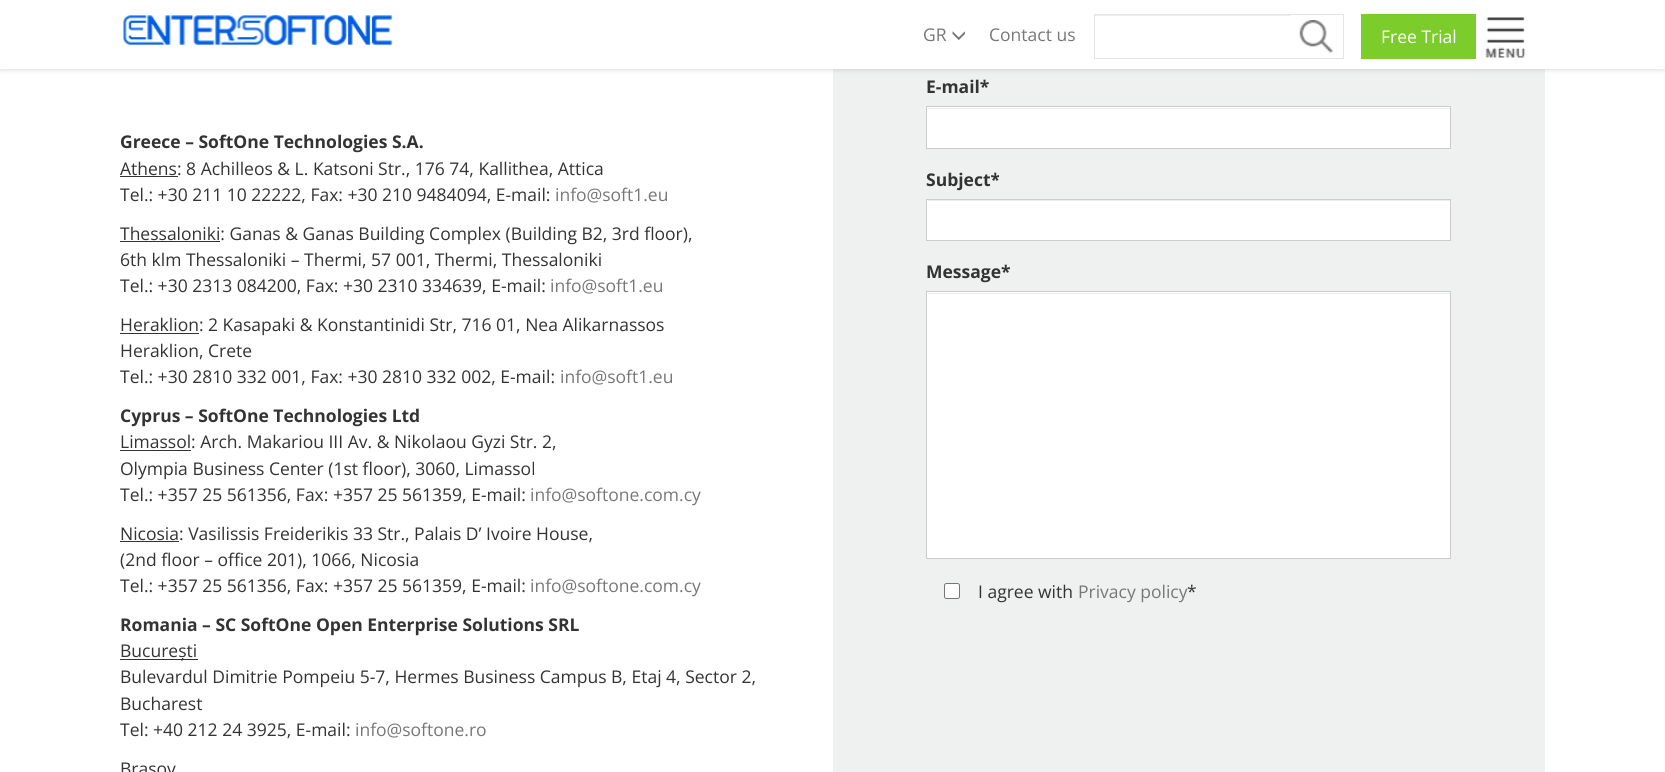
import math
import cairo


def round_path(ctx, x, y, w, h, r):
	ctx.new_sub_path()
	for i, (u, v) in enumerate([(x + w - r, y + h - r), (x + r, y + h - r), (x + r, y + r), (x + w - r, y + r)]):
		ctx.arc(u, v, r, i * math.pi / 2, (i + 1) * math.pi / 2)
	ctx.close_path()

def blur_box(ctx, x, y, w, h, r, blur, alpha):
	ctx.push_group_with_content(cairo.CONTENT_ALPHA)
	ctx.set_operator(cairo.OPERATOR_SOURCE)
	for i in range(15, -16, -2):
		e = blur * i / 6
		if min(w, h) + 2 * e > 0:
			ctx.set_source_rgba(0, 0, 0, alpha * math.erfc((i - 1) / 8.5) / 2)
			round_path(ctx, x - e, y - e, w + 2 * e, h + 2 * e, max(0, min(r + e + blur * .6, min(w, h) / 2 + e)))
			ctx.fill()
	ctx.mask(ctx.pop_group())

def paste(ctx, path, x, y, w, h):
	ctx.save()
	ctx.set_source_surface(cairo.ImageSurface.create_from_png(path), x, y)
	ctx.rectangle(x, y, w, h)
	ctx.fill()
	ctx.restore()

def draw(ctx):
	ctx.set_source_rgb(1, 1, 1)
	ctx.paint()
	ctx.set_source_rgb(0.937, 0.941, 0.941)
	ctx.rectangle(833, 69, 712, 703)
	ctx.fill()
	ctx.set_source_rgb(0, 0, 0)
	blur_box(ctx, 0, 3, 1665, 68, 0, 2, 0.1)
	ctx.set_source_rgb(1, 1, 1)
	ctx.rectangle(0, 0, 1665, 69)
	ctx.fill()
	paste(ctx, 'media/1.png', 123, 14, 270, 32)
	ctx.select_font_face('Open Sans')
	ctx.set_font_size(17.5)
	ctx.set_source_rgb(0.467, 0.467, 0.467)
	ctx.move_to(923, 41)
	ctx.show_text('GR')
	paste(ctx, 'media/2.png', 952, 31, 13, 9)
	ctx.move_to(989, 41)
	ctx.show_text('Contact us')
	ctx.rectangle(1094.5, 14.5, 249, 44)
	ctx.set_source_rgb(0.898, 0.898, 0.898)
	ctx.set_line_width(1)
	ctx.stroke()
	ctx.set_source_rgb(0.925, 0.925, 0.925)
	ctx.rectangle(1095, 15, 196, 1)
	ctx.fill()
	paste(ctx, 'media/3.png', 1299, 20, 34, 33)
	ctx.set_source_rgb(0.486, 0.8, 0.173)
	ctx.rectangle(1361, 14, 115, 45)
	ctx.fill()
	ctx.set_source_rgb(1, 1, 1)
	ctx.move_to(1381, 43)
	ctx.show_text('Free Trial')
	paste(ctx, 'media/4.png', 1485, 17, 41, 41)
	ctx.select_font_face('Open Sans', cairo.FONT_SLANT_NORMAL, cairo.FONT_WEIGHT_BOLD)
	ctx.set_source_rgb(0.2, 0.2, 0.2)
	ctx.move_to(120, 148)
	ctx.show_text('Greece – SoftOne Technologies S.A.')
	ctx.rectangle(120, 176, 58, 1)
	ctx.fill()
	ctx.select_font_face('Open Sans')
	ctx.move_to(120, 175)
	ctx.show_text('Athens: 8 Achilleos & L. Katsoni Str., 176 74, Kallithea, Attica')
	ctx.move_to(120, 201)
	ctx.show_text('Tel.: +30 211 10 22222, Fax: +30 210 9484094, E-mail:')
	ctx.set_source_rgb(0.467, 0.467, 0.467)
	ctx.move_to(555, 201)
	ctx.show_text('info@soft1.eu')
	ctx.set_source_rgb(0.2, 0.2, 0.2)
	ctx.rectangle(120, 241, 100, 1)
	ctx.fill()
	for x, y, s in [
		(120, 240, 'Thessaloniki: Ganas & Ganas Building Complex (Building B2, 3rd floor),'),
		(120, 266, '6th klm Thessaloniki – Thermi, 57 001, Thermi, Thessaloniki'),
		(120, 292, 'Tel.: +30 2313 084200, Fax: +30 2310 334639, E-mail:'),
	]:
		ctx.move_to(x, y)
		ctx.show_text(s)
	ctx.set_source_rgb(0.467, 0.467, 0.467)
	ctx.move_to(550, 292)
	ctx.show_text('info@soft1.eu')
	ctx.set_source_rgb(0.2, 0.2, 0.2)
	ctx.rectangle(120, 333, 79, 1)
	ctx.fill()
	for x, y, s in [
		(120, 331, 'Heraklion: 2 Kasapaki & Konstantinidi Str, 716 01, Nea Alikarnassos'),
		(120, 357, 'Heraklion, Crete'),
		(120, 383, 'Tel.: +30 2810 332 001, Fax: +30 2810 332 002, E-mail:'),
	]:
		ctx.move_to(x, y)
		ctx.show_text(s)
	ctx.set_source_rgb(0.467, 0.467, 0.467)
	ctx.move_to(560, 383)
	ctx.show_text('info@soft1.eu')
	ctx.select_font_face('Open Sans', cairo.FONT_SLANT_NORMAL, cairo.FONT_WEIGHT_BOLD)
	ctx.set_source_rgb(0.2, 0.2, 0.2)
	ctx.move_to(120, 422)
	ctx.show_text('Cyprus – SoftOne Technologies Ltd')
	ctx.rectangle(120, 450, 71, 1)
	ctx.fill()
	ctx.select_font_face('Open Sans')
	for x, y, s in [
		(120, 448, 'Limassol: Arch. Makariou III Av. & Nikolaou Gyzi Str. 2,'),
		(120, 475, 'Olympia Business Center (1st floor), 3060, Limassol'),
		(120, 501, 'Tel.: +357 25 561356, Fax: +357 25 561359, E-mail:'),
	]:
		ctx.move_to(x, y)
		ctx.show_text(s)
	ctx.set_source_rgb(0.467, 0.467, 0.467)
	ctx.move_to(530, 501)
	ctx.show_text('info@softone.com.cy')
	ctx.set_source_rgb(0.2, 0.2, 0.2)
	ctx.rectangle(120, 541, 59, 1)
	ctx.fill()
	for x, y, s in [
		(120, 540, 'Nicosia: Vasilissis Freiderikis 33 Str., Palais D’ Ivoire House,'),
		(120, 566, '(2nd floor – office 201), 1066, Nicosia'),
		(120, 592, 'Tel.: +357 25 561356, Fax: +357 25 561359, E-mail:'),
	]:
		ctx.move_to(x, y)
		ctx.show_text(s)
	ctx.set_source_rgb(0.467, 0.467, 0.467)
	ctx.move_to(530, 592)
	ctx.show_text('info@softone.com.cy')
	ctx.select_font_face('Open Sans', cairo.FONT_SLANT_NORMAL, cairo.FONT_WEIGHT_BOLD)
	ctx.set_source_rgb(0.2, 0.2, 0.2)
	ctx.move_to(120, 631)
	ctx.show_text('Romania – SC SoftOne Open Enterprise Solutions SRL')
	ctx.rectangle(120, 659, 78, 1)
	ctx.fill()
	ctx.select_font_face('Open Sans')
	for x, y, s in [
		(120, 657, 'București'),
		(120, 683, 'Bulevardul Dimitrie Pompeiu 5-7, Hermes Business Campus B, Etaj 4, Sector 2,'),
		(120, 710, 'Bucharest'),
		(120, 736, 'Tel: +40 212 24 3925, E-mail:'),
	]:
		ctx.move_to(x, y)
		ctx.show_text(s)
	ctx.set_source_rgb(0.467, 0.467, 0.467)
	ctx.move_to(355, 736)
	ctx.show_text('info@softone.ro')
	ctx.set_source_rgb(0.2, 0.2, 0.2)
	ctx.move_to(120, 775)
	ctx.show_text('Brașov')
	ctx.select_font_face('Open Sans', cairo.FONT_SLANT_NORMAL, cairo.FONT_WEIGHT_BOLD)
	ctx.move_to(926, 93)
	ctx.show_text('E-mail*')
	ctx.set_source_rgb(1, 1, 1)
	ctx.rectangle(927, 107, 523, 41)
	ctx.fill()
	ctx.set_source_rgb(0.925, 0.925, 0.925)
	ctx.rectangle(928, 108, 522, 1)
	ctx.fill()
	ctx.rectangle(926.5, 106.5, 524, 42)
	ctx.set_source_rgb(0.8, 0.8, 0.8)
	ctx.stroke()
	ctx.set_source_rgb(0.2, 0.2, 0.2)
	ctx.move_to(926, 186)
	ctx.show_text('Subject*')
	ctx.set_source_rgb(1, 1, 1)
	ctx.rectangle(927, 200, 523, 40)
	ctx.fill()
	ctx.set_source_rgb(0.925, 0.925, 0.925)
	ctx.rectangle(928, 200, 522, 1)
	ctx.fill()
	ctx.rectangle(926.5, 199.5, 524, 41)
	ctx.set_source_rgb(0.8, 0.8, 0.8)
	ctx.stroke()
	ctx.set_source_rgb(0.2, 0.2, 0.2)
	ctx.move_to(926, 278)
	ctx.show_text('Message*')
	ctx.set_source_rgb(1, 1, 1)
	ctx.rectangle(927, 292, 523, 266)
	ctx.fill()
	ctx.set_source_rgb(0.925, 0.925, 0.925)
	ctx.rectangle(928, 293, 522, 1)
	ctx.fill()
	ctx.rectangle(926.5, 291.5, 524, 267)
	ctx.set_source_rgb(0.8, 0.8, 0.8)
	ctx.stroke()
	ctx.set_source_rgb(1, 1, 1)
	round_path(ctx, 944.5, 583.5, 15, 15, 2)
	ctx.fill_preserve()
	ctx.set_source_rgb(0.463, 0.463, 0.463)
	ctx.stroke()
	ctx.select_font_face('Open Sans')
	ctx.set_source_rgb(0.2, 0.2, 0.2)
	ctx.move_to(978, 598)
	ctx.show_text('I agree with')
	ctx.set_source_rgb(0.467, 0.467, 0.467)
	ctx.move_to(1078, 598)
	ctx.show_text('Privacy policy')
	ctx.set_source_rgb(0.2, 0.2, 0.2)
	ctx.move_to(1187, 598)
	ctx.show_text('*')


surface = cairo.ImageSurface(cairo.FORMAT_RGB24, 1665, 772)
ctx = cairo.Context(surface)
options = cairo.FontOptions()
options.set_hint_metrics(cairo.HINT_METRICS_OFF)
options.set_hint_style(cairo.HINT_STYLE_NONE)
ctx.set_font_options(options)
ctx.set_miter_limit(4)
draw(ctx)
surface.write_to_png('image.png')
